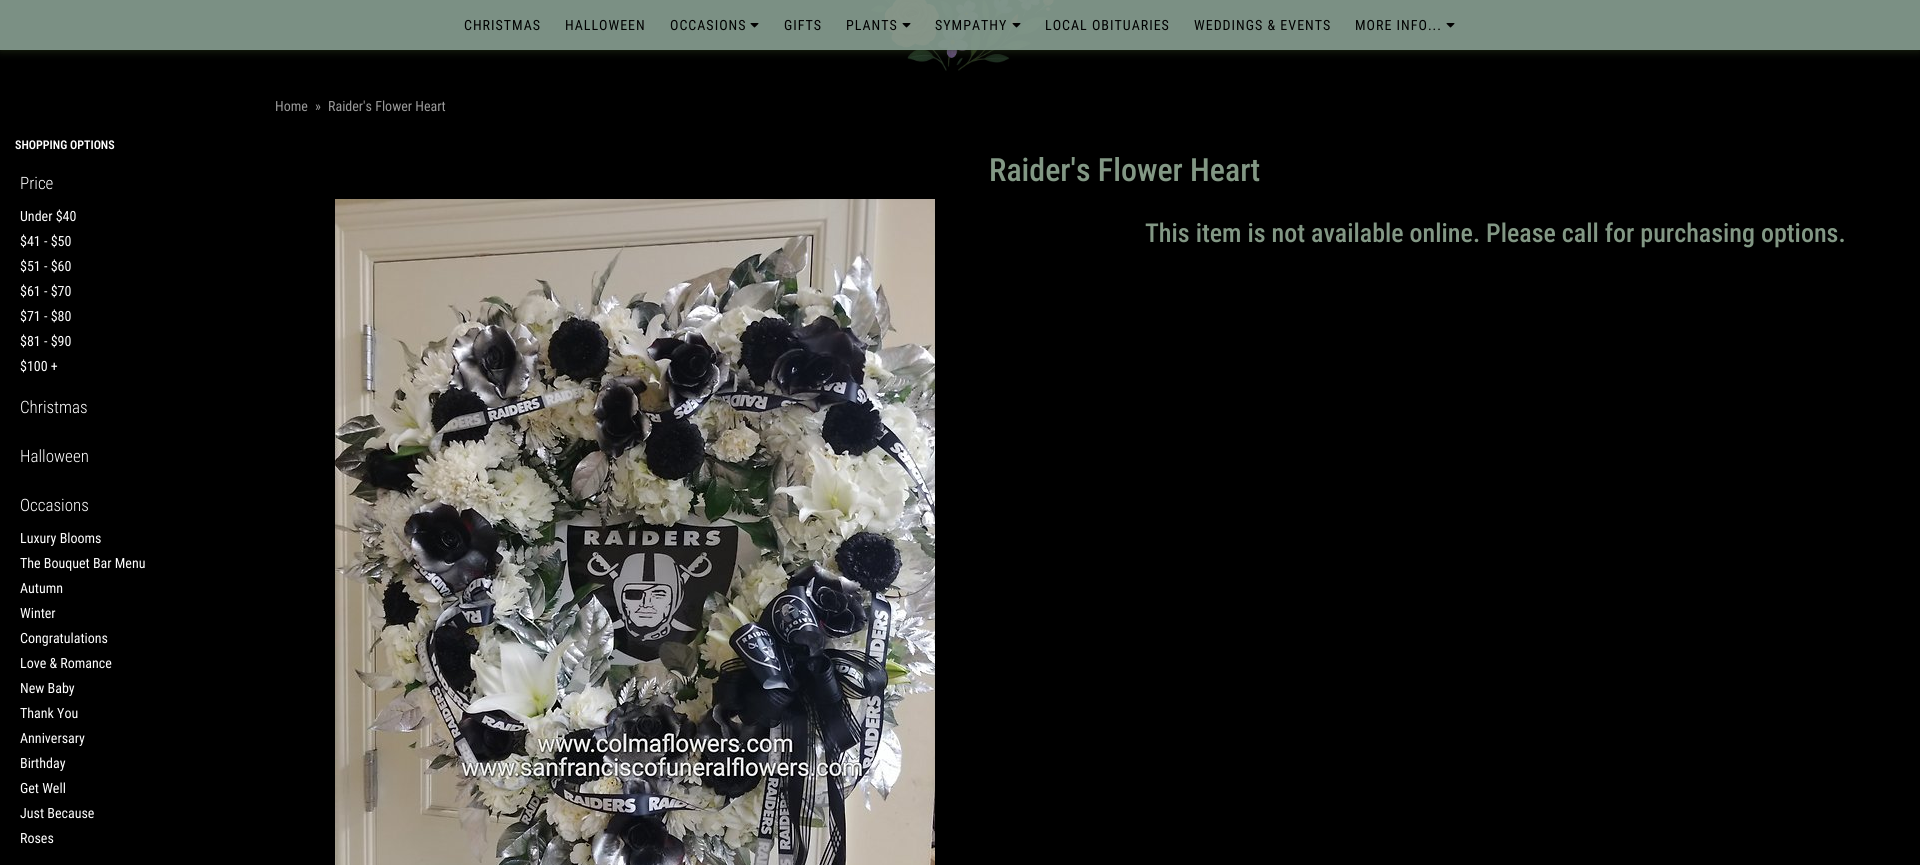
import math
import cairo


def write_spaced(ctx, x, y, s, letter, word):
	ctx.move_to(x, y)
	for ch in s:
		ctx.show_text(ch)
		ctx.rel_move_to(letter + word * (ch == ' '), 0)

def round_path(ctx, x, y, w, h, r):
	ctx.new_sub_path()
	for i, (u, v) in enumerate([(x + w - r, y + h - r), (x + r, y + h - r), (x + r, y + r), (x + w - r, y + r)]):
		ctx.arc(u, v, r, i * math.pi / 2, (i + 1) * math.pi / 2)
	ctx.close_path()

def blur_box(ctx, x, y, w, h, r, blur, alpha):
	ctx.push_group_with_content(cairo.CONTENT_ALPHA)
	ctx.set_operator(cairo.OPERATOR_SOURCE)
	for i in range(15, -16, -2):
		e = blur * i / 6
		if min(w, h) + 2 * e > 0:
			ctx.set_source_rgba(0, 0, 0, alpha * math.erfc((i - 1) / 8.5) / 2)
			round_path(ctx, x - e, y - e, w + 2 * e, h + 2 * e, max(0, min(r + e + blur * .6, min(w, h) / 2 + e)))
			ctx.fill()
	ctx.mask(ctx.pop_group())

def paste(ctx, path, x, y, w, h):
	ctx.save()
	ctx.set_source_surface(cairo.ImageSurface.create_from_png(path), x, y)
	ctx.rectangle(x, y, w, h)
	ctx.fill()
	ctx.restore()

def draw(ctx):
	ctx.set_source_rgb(0, 0, 0)
	ctx.paint()
	paste(ctx, 'media/1.png', 871, 0, 183, 71)
	ctx.save()
	ctx.rectangle(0, 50, 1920, 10)
	ctx.clip()
	ctx.set_source_rgb(0.157, 0.212, 0.094)
	blur_box(ctx, 0, 0, 1920, 50, 0, 5, 0.8)
	ctx.restore()
	ctx.set_source_rgba(0.506, 0.596, 0.545, 0.95)
	ctx.rectangle(0, 0, 1920, 50)
	ctx.fill()
	ctx.select_font_face('Roboto Condensed')
	ctx.set_font_size(14)
	ctx.set_source_rgb(0, 0, 0)
	for x, y, s in [
		(464, 30, 'CHRISTMAS'),
		(565, 30, 'HALLOWEEN'),
		(670, 30, 'OCCASIONS'),
	]:
		write_spaced(ctx, x, y, s, 1, 0)
	paste(ctx, 'media/2.png', 750, 23, 9, 5)
	write_spaced(ctx, 784, 30, 'GIFTS', 1, 0)
	write_spaced(ctx, 846, 30, 'PLANTS', 1, 0)
	paste(ctx, 'media/3.png', 902, 23, 9, 5)
	write_spaced(ctx, 935, 30, 'SYMPATHY', 1, 0)
	paste(ctx, 'media/4.png', 1012, 23, 9, 5)
	for x, y, s in [
		(1045, 30, 'LOCAL OBITUARIES'),
		(1194, 30, 'WEDDINGS & EVENTS'),
		(1355, 30, 'MORE INFO...'),
	]:
		write_spaced(ctx, x, y, s, 1, 0)
	paste(ctx, 'media/2.png', 1446, 23, 9, 5)
	ctx.set_source_rgb(0.6, 0.6, 0.6)
	for x, y, s in [
		(275, 111, 'Home'),
		(315, 111, '»'),
		(328, 111, 'Raider\'s Flower Heart'),
	]:
		ctx.move_to(x, y)
		ctx.show_text(s)
	ctx.select_font_face('Roboto Condensed SemiBold')
	ctx.set_font_size(12)
	ctx.set_source_rgb(1, 1, 1)
	ctx.move_to(15, 149)
	ctx.show_text('SHOPPING OPTIONS')
	ctx.select_font_face('Roboto Condensed Light')
	ctx.set_font_size(17)
	ctx.move_to(20, 189)
	ctx.show_text('Price')
	ctx.select_font_face('Roboto Condensed')
	ctx.set_font_size(14)
	for x, y, s in [
		(20, 221, 'Under $40'),
		(20, 246, '$41 - $50'),
		(20, 271, '$51 - $60'),
		(20, 296, '$61 - $70'),
		(20, 321, '$71 - $80'),
		(20, 346, '$81 - $90'),
		(20, 371, '$100 +'),
	]:
		ctx.move_to(x, y)
		ctx.show_text(s)
	ctx.select_font_face('Roboto Condensed Light')
	ctx.set_font_size(17)
	for x, y, s in [
		(20, 413, 'Christmas'),
		(20, 462, 'Halloween'),
		(20, 511, 'Occasions'),
	]:
		ctx.move_to(x, y)
		ctx.show_text(s)
	ctx.select_font_face('Roboto Condensed')
	ctx.set_font_size(14)
	for x, y, s in [
		(20, 543, 'Luxury Blooms'),
		(20, 568, 'The Bouquet Bar Menu'),
		(20, 593, 'Autumn'),
		(20, 618, 'Winter'),
		(20, 643, 'Congratulations'),
		(20, 668, 'Love & Romance'),
		(20, 693, 'New Baby'),
		(20, 718, 'Thank You'),
		(20, 743, 'Anniversary'),
		(20, 768, 'Birthday'),
		(20, 793, 'Get Well'),
		(20, 818, 'Just Because'),
		(20, 843, 'Roses'),
	]:
		ctx.move_to(x, y)
		ctx.show_text(s)
	ctx.select_font_face('Roboto Condensed Medium')
	ctx.set_font_size(32)
	ctx.set_source_rgb(0.51, 0.592, 0.518)
	ctx.move_to(989, 181)
	ctx.show_text('Raider\'s Flower Heart')
	paste(ctx, 'media/5.png', 335, 199, 600, 666)
	ctx.set_font_size(26)
	ctx.move_to(1145, 242)
	ctx.show_text('This item is not available online. Please call for purchasing options.')


surface = cairo.ImageSurface(cairo.FORMAT_RGB24, 1920, 865)
ctx = cairo.Context(surface)
options = cairo.FontOptions()
options.set_hint_metrics(cairo.HINT_METRICS_OFF)
options.set_hint_style(cairo.HINT_STYLE_NONE)
ctx.set_font_options(options)
ctx.set_miter_limit(4)
draw(ctx)
surface.write_to_png('image.png')
